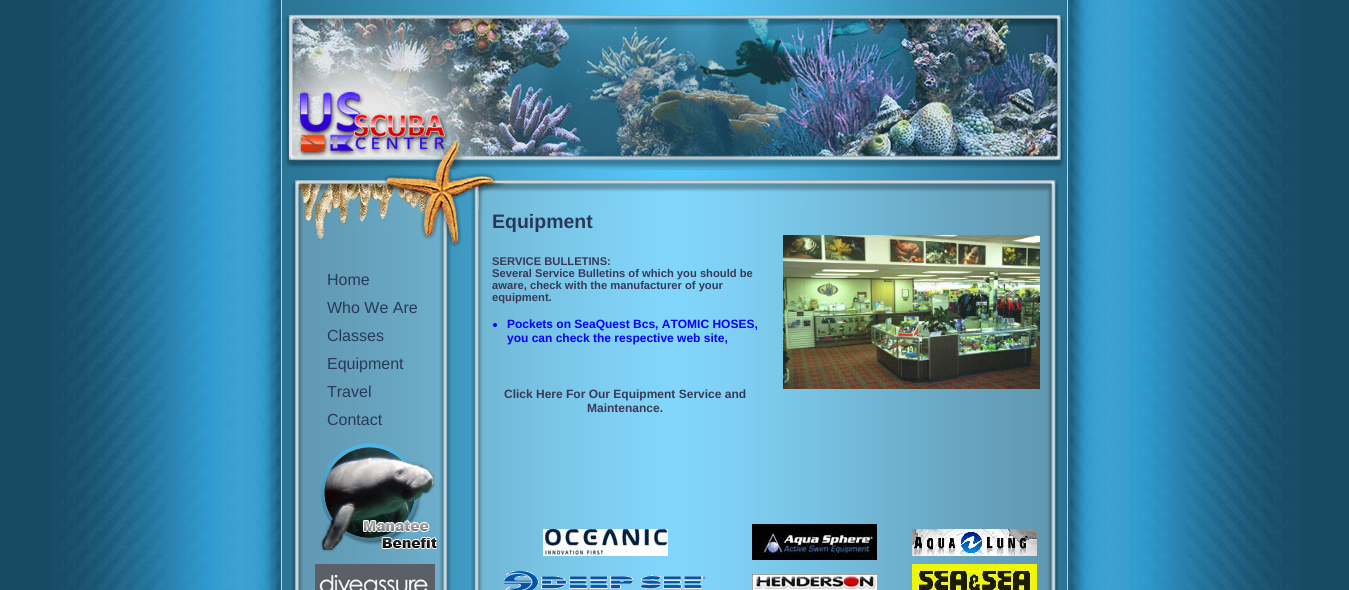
import math
import cairo


def paste(ctx, path, x, y, w, h):
	ctx.save()
	ctx.set_source_surface(cairo.ImageSurface.create_from_png(path), x, y)
	ctx.rectangle(x, y, w, h)
	ctx.fill()
	ctx.restore()

def draw(ctx):
	ctx.set_source_rgb(0.09, 0.294, 0.388)
	ctx.paint()
	paste(ctx, 'media/1.png', 51, 0, 1248, 590)
	paste(ctx, 'media/2.png', 282, 0, 785, 590)
	ctx.set_source_rgb(0.8, 0.8, 0.8)
	ctx.rectangle(1067, 0, 1, 590)
	ctx.fill()
	ctx.rectangle(281, 0, 1, 590)
	ctx.fill()
	paste(ctx, 'media/3.png', 282, 8, 784, 162)
	paste(ctx, 'media/4.png', 291, 170, 176, 80)
	paste(ctx, 'media/5.png', 291, 250, 161, 340)
	ctx.select_font_face('Liberation Sans')
	ctx.set_font_size(16)
	ctx.set_source_rgb(0.157, 0.224, 0.341)
	for x, y, s in [
		(327, 285, 'Home'),
		(327, 313, 'Who We Are'),
		(327, 341, 'Classes'),
		(327, 369, 'Equipment'),
		(327, 397, 'Travel'),
		(327, 425, 'Contact'),
	]:
		ctx.move_to(x, y)
		ctx.show_text(s)
	paste(ctx, 'media/6.png', 320, 443, 117, 109)
	paste(ctx, 'media/7.png', 315, 564, 120, 26)
	paste(ctx, 'media/8.png', 467, 170, 592, 40)
	paste(ctx, 'media/9.png', 471, 210, 588, 380)
	ctx.select_font_face('Liberation Sans', cairo.FONT_SLANT_NORMAL, cairo.FONT_WEIGHT_BOLD)
	ctx.set_font_size(19.5)
	ctx.move_to(492, 228)
	ctx.show_text('Equipment')
	paste(ctx, 'media/10.png', 783, 235, 257, 154)
	ctx.set_font_size(11.2)
	ctx.set_source_rgb(0.22, 0.224, 0.341)
	for x, y, s in [
		(492, 265, 'SERVICE BULLETINS:'),
		(492, 277, 'Several Service Bulletins of which you should be'),
		(492, 289, 'aware, check with the manufacturer of your'),
		(492, 301, 'equipment.'),
	]:
		ctx.move_to(x, y)
		ctx.show_text(s)
	ctx.set_source_rgb(0, 0, 1)
	ctx.new_path()
	ctx.arc(495, 325, 2, 0, 2 * math.pi)
	ctx.fill()
	ctx.set_font_size(12)
	ctx.move_to(507, 328)
	ctx.show_text('Pockets on SeaQuest Bcs, ATOMIC HOSES,')
	ctx.move_to(507, 342)
	ctx.show_text('you can check the respective web site,')
	ctx.set_source_rgb(0.22, 0.224, 0.341)
	ctx.move_to(504, 398)
	ctx.show_text('Click Here For Our Equipment Service and')
	ctx.move_to(587, 412)
	ctx.show_text('Maintenance.')
	paste(ctx, 'media/11.png', 543, 529, 125, 27)
	paste(ctx, 'media/12.png', 752, 524, 125, 36)
	paste(ctx, 'media/13.png', 912, 529, 125, 27)
	paste(ctx, 'media/14.png', 504, 571, 202, 19)
	paste(ctx, 'media/15.png', 752, 574, 125, 16)
	paste(ctx, 'media/16.png', 912, 564, 125, 26)


surface = cairo.ImageSurface(cairo.FORMAT_RGB24, 1349, 590)
ctx = cairo.Context(surface)
options = cairo.FontOptions()
options.set_hint_metrics(cairo.HINT_METRICS_OFF)
options.set_hint_style(cairo.HINT_STYLE_NONE)
ctx.set_font_options(options)
ctx.set_miter_limit(4)
draw(ctx)
surface.write_to_png('image.png')
